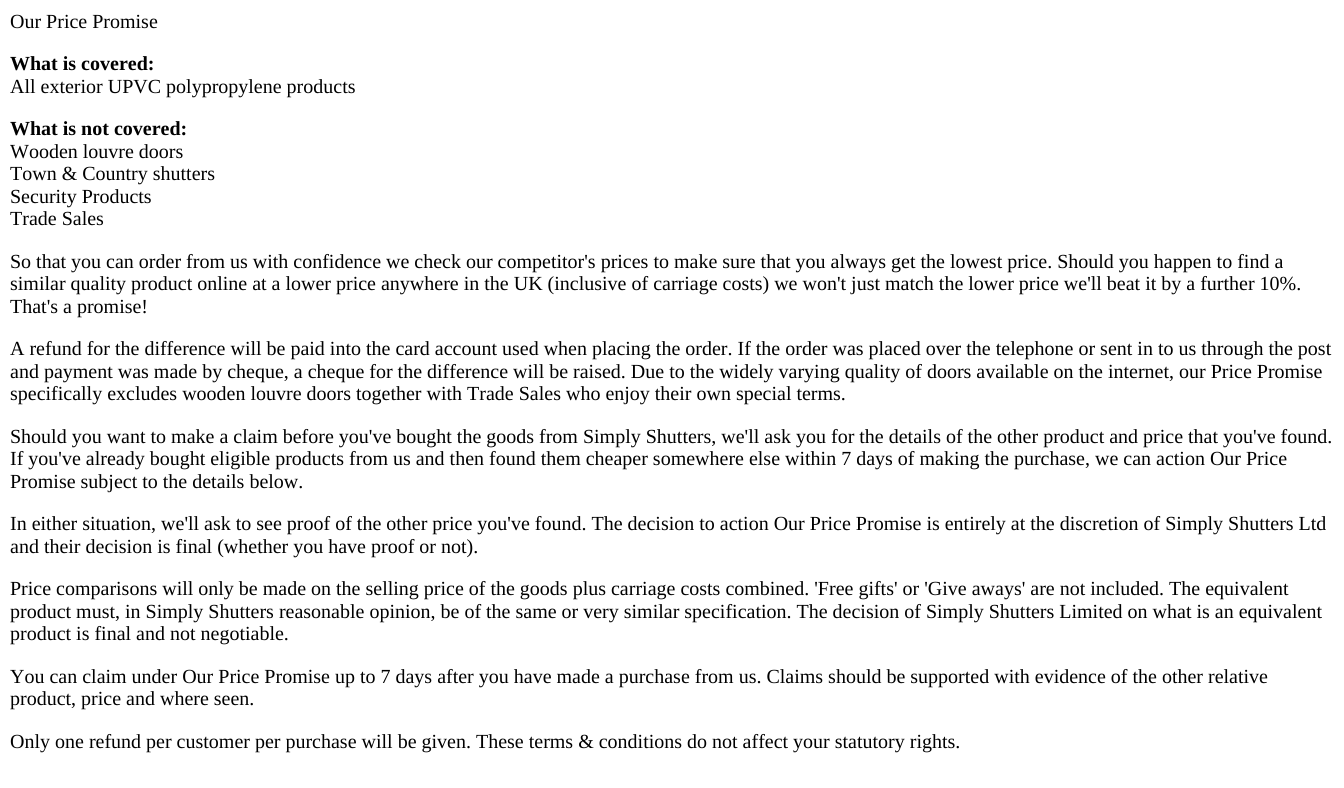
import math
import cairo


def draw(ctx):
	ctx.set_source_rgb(1, 1, 1)
	ctx.paint()
	ctx.select_font_face('Liberation Serif')
	ctx.set_font_size(20)
	ctx.set_source_rgb(0, 0, 0)
	ctx.move_to(10, 28)
	ctx.show_text('Our Price Promise')
	ctx.select_font_face('Liberation Serif', cairo.FONT_SLANT_NORMAL, cairo.FONT_WEIGHT_BOLD)
	ctx.move_to(10, 70)
	ctx.show_text('What is covered:')
	ctx.select_font_face('Liberation Serif')
	ctx.move_to(10, 93)
	ctx.show_text('All exterior UPVC polypropylene products')
	ctx.select_font_face('Liberation Serif', cairo.FONT_SLANT_NORMAL, cairo.FONT_WEIGHT_BOLD)
	ctx.move_to(10, 135)
	ctx.show_text('What is not covered:')
	ctx.select_font_face('Liberation Serif')
	for x, y, s in [
		(10, 158, 'Wooden louvre doors'),
		(10, 180, 'Town & Country shutters'),
		(10, 203, 'Security Products'),
		(10, 225, 'Trade Sales'),
		(10, 268, 'So that you can order from us with confidence we check our competitor\'s prices to make sure that you always get the lowest price. Should you happen to find a'),
		(10, 290, 'similar quality product online at a lower price anywhere in the UK (inclusive of carriage costs) we won\'t just match the lower price we\'ll beat it by a further 10%.'),
		(10, 313, 'That\'s a promise!'),
		(10, 355, 'A refund for the difference will be paid into the card account used when placing the order. If the order was placed over the telephone or sent in to us through the post'),
		(10, 378, 'and payment was made by cheque, a cheque for the difference will be raised. Due to the widely varying quality of doors available on the internet, our Price Promise'),
		(10, 400, 'specifically excludes wooden louvre doors together with Trade Sales who enjoy their own special terms.'),
		(10, 443, 'Should you want to make a claim before you\'ve bought the goods from Simply Shutters, we\'ll ask you for the details of the other product and price that you\'ve found.'),
		(10, 465, 'If you\'ve already bought eligible products from us and then found them cheaper somewhere else within 7 days of making the purchase, we can action Our Price'),
		(10, 488, 'Promise subject to the details below.'),
		(10, 530, 'In either situation, we\'ll ask to see proof of the other price you\'ve found. The decision to action Our Price Promise is entirely at the discretion of Simply Shutters Ltd'),
		(10, 553, 'and their decision is final (whether you have proof or not).'),
		(10, 595, 'Price comparisons will only be made on the selling price of the goods plus carriage costs combined. \'Free gifts\' or \'Give aways\' are not included. The equivalent'),
		(10, 618, 'product must, in Simply Shutters reasonable opinion, be of the same or very similar specification. The decision of Simply Shutters Limited on what is an equivalent'),
		(10, 640, 'product is final and not negotiable.'),
		(10, 683, 'You can claim under Our Price Promise up to 7 days after you have made a purchase from us. Claims should be supported with evidence of the other relative'),
		(10, 705, 'product, price and where seen.'),
		(10, 748, 'Only one refund per customer per purchase will be given. These terms & conditions do not affect your statutory rights.'),
	]:
		ctx.move_to(x, y)
		ctx.show_text(s)


surface = cairo.ImageSurface(cairo.FORMAT_RGB24, 1344, 788)
ctx = cairo.Context(surface)
options = cairo.FontOptions()
options.set_hint_metrics(cairo.HINT_METRICS_OFF)
options.set_hint_style(cairo.HINT_STYLE_NONE)
ctx.set_font_options(options)
ctx.set_miter_limit(4)
draw(ctx)
surface.write_to_png('image.png')
